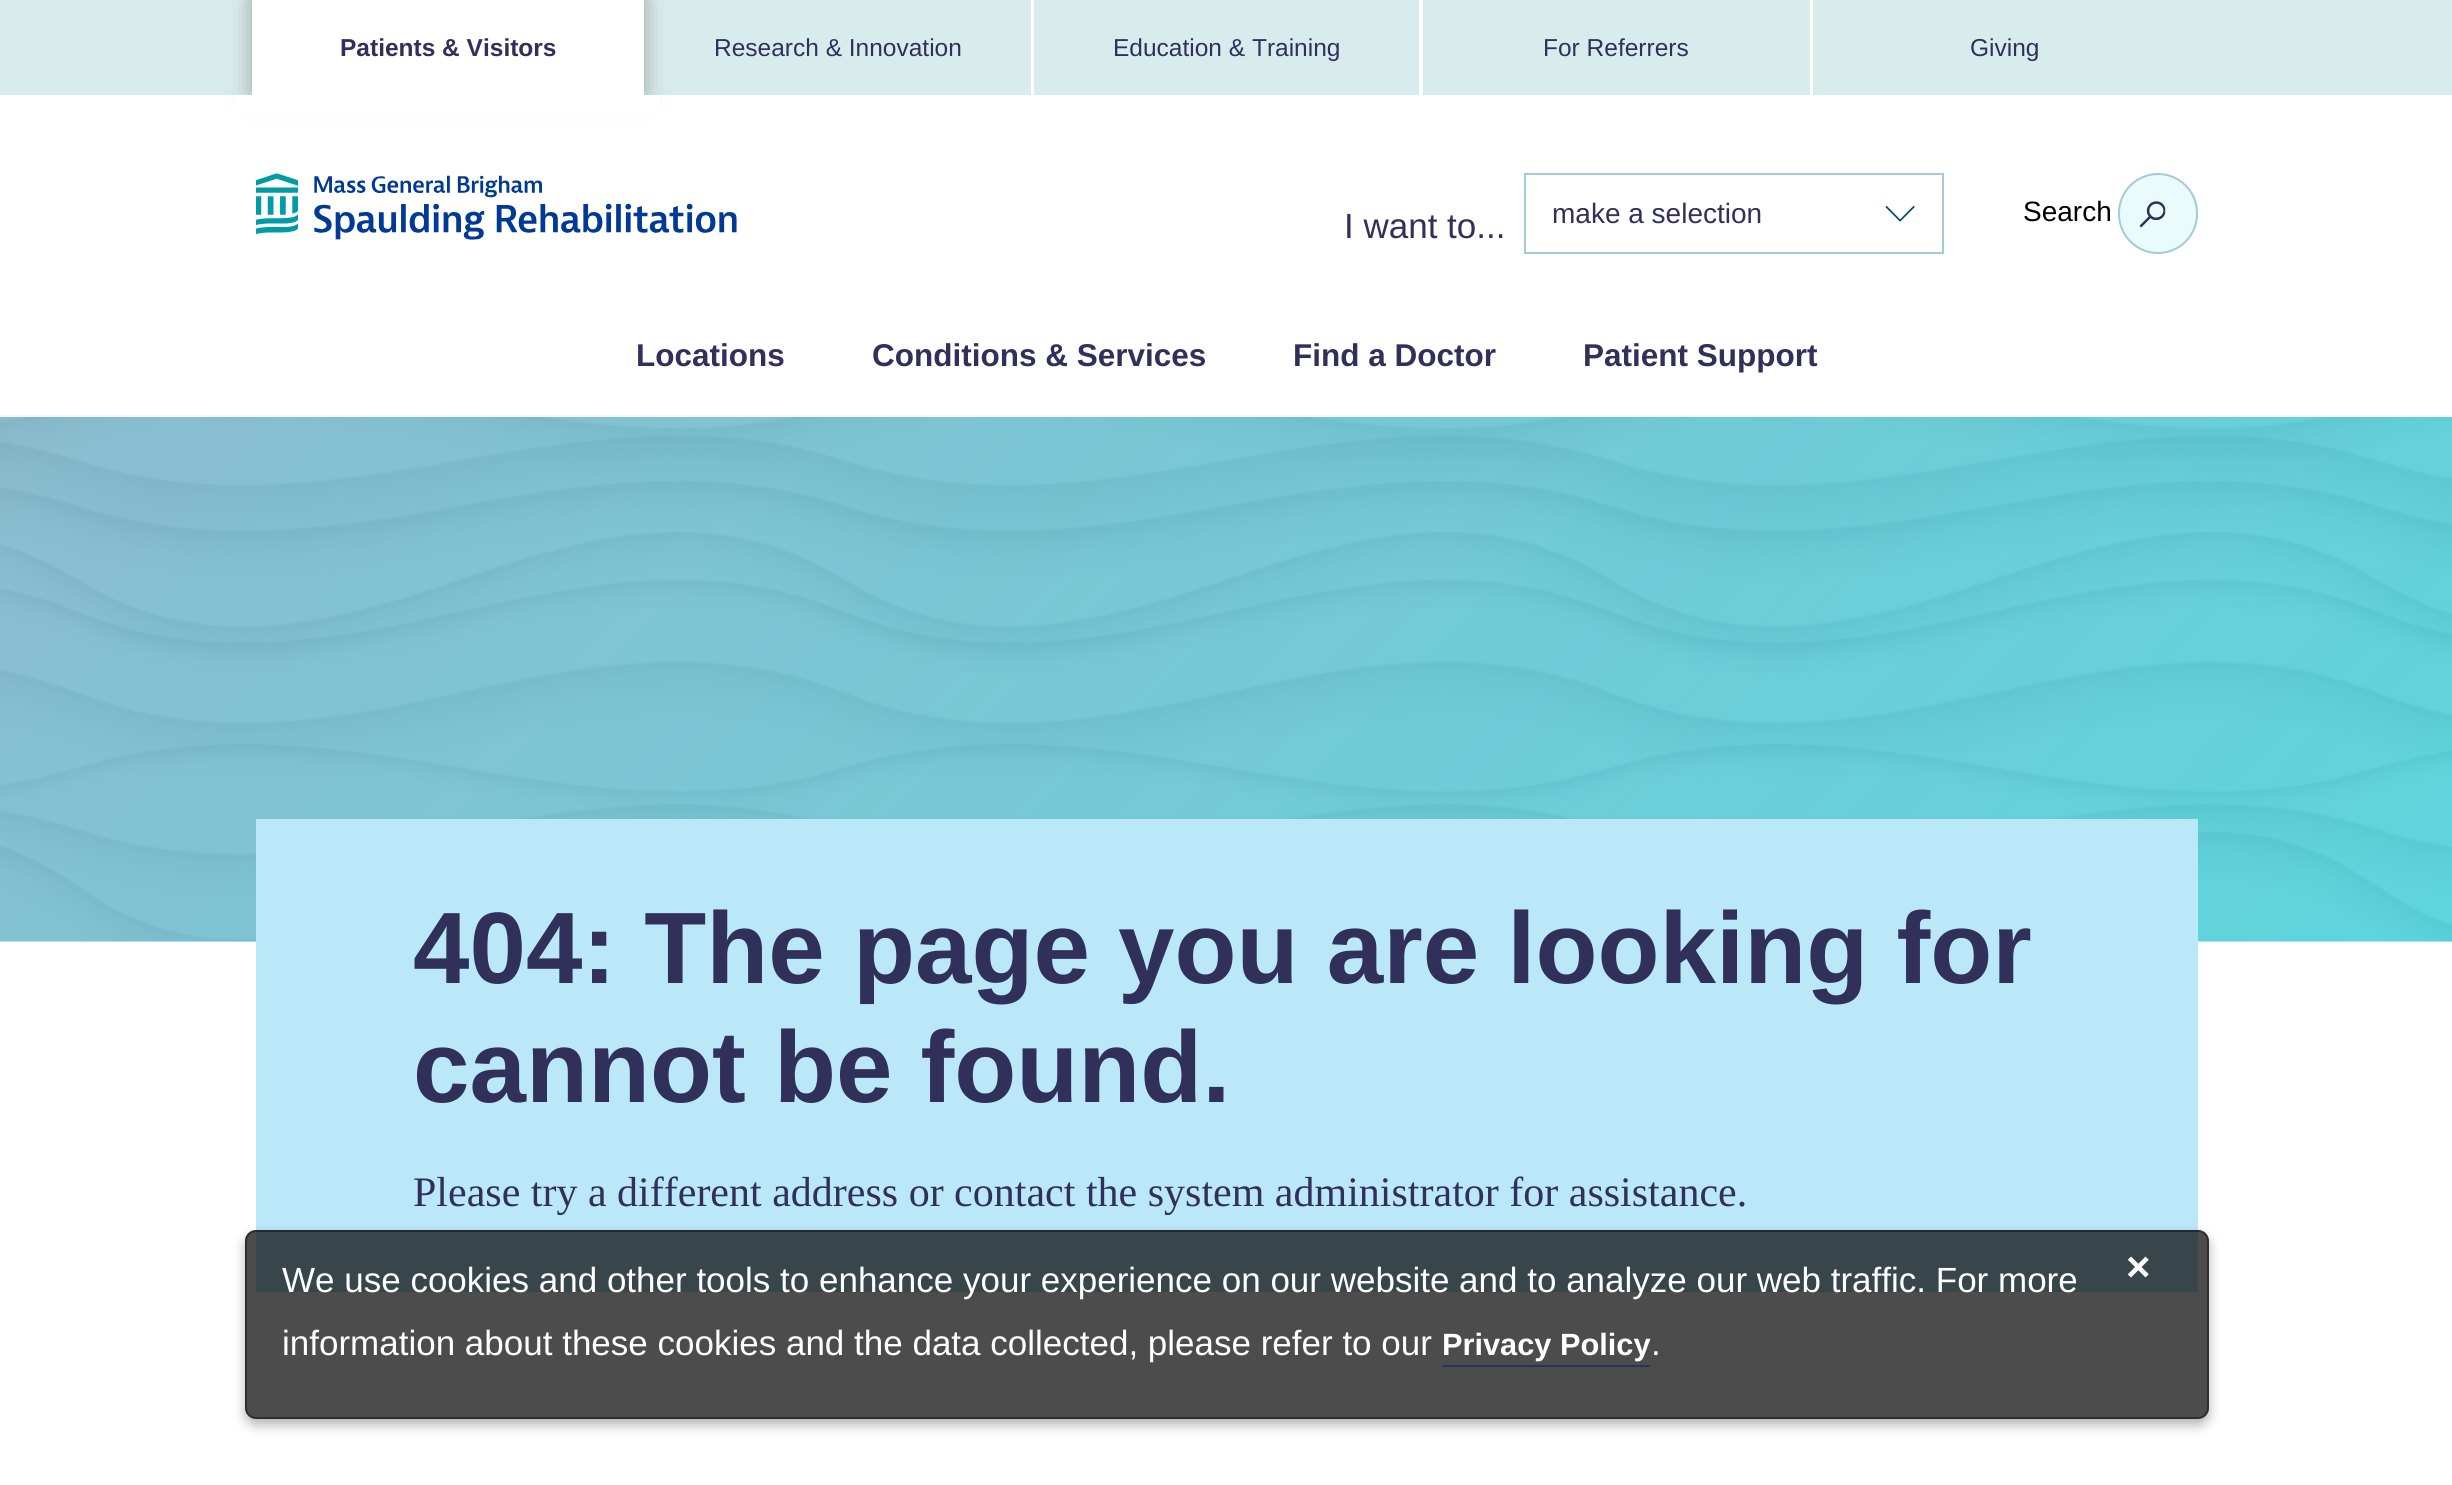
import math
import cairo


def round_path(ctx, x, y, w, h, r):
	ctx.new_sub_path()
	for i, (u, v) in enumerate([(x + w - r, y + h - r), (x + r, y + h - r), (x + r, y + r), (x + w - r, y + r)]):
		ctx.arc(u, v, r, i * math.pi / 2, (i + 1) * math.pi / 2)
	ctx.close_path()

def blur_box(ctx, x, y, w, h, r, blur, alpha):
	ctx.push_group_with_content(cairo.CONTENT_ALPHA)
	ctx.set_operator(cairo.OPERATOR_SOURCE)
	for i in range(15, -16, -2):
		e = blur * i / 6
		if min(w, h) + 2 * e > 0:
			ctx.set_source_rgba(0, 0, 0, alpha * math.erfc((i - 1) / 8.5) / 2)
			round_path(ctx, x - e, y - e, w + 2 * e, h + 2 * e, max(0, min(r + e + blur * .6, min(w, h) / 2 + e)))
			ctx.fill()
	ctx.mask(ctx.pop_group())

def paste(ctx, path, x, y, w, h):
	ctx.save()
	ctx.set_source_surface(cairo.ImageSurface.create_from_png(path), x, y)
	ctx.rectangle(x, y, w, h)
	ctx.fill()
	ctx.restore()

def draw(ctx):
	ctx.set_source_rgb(1, 1, 1)
	ctx.paint()
	ctx.set_source_rgb(0.965, 0.961, 0.984)
	ctx.rectangle(0, 415, 2452, 2)
	ctx.fill()
	ctx.set_source_rgb(0.851, 0.925, 0.929)
	ctx.rectangle(0, 0, 2452, 95)
	ctx.fill()
	ctx.set_source_rgb(0.337, 0.337, 0.337)
	blur_box(ctx, 252, 0, 392, 95, 0, 11.5, 0.5)
	ctx.set_source_rgb(1, 1, 1)
	ctx.rectangle(252, 0, 392, 95)
	ctx.fill()
	ctx.select_font_face('Liberation Sans', cairo.FONT_SLANT_NORMAL, cairo.FONT_WEIGHT_BOLD)
	ctx.set_font_size(24.5)
	ctx.set_source_rgb(0.188, 0.188, 0.357)
	ctx.move_to(340, 56)
	ctx.show_text('Patients & Visitors')
	ctx.set_source_rgb(1, 1, 1)
	ctx.rectangle(234, 95, 426, 21)
	ctx.fill()
	ctx.rectangle(1031, 0, 3, 95)
	ctx.fill()
	ctx.select_font_face('Liberation Sans')
	ctx.set_source_rgb(0.188, 0.188, 0.357)
	ctx.move_to(714, 56)
	ctx.show_text('Research & Innovation')
	ctx.set_source_rgb(1, 1, 1)
	ctx.rectangle(1419, 0, 4, 95)
	ctx.fill()
	ctx.set_source_rgb(0.188, 0.188, 0.357)
	ctx.move_to(1113, 56)
	ctx.show_text('Education & Training')
	ctx.set_source_rgb(1, 1, 1)
	ctx.rectangle(1810, 0, 3, 95)
	ctx.fill()
	ctx.set_source_rgb(0.188, 0.188, 0.357)
	ctx.move_to(1543, 56)
	ctx.show_text('For Referrers')
	ctx.move_to(1970, 56)
	ctx.show_text('Giving')
	paste(ctx, 'media/1.png', 256, 173, 481, 67)
	ctx.set_font_size(35)
	ctx.move_to(1344, 238)
	ctx.show_text('I want to...')
	ctx.rectangle(1525, 174, 418, 79)
	ctx.set_source_rgb(0.639, 0.796, 0.835)
	ctx.stroke()
	ctx.set_font_size(28)
	ctx.set_source_rgb(0.188, 0.188, 0.357)
	ctx.move_to(1552, 223)
	ctx.show_text('make a selection')
	paste(ctx, 'media/2.png', 1885, 206, 30, 16)
	ctx.set_source_rgb(0, 0, 0)
	ctx.move_to(2023, 221)
	ctx.show_text('Search')
	ctx.set_source_rgb(0.914, 0.984, 0.984)
	round_path(ctx, 2119, 174, 78, 79, 39)
	ctx.fill_preserve()
	ctx.set_source_rgb(0.639, 0.796, 0.835)
	ctx.stroke()
	paste(ctx, 'media/3.png', 2139, 201, 27, 27)
	ctx.select_font_face('Liberation Sans', cairo.FONT_SLANT_NORMAL, cairo.FONT_WEIGHT_BOLD)
	ctx.set_font_size(31.5)
	ctx.set_source_rgb(0.188, 0.188, 0.357)
	for x, y, s in [
		(636, 366, 'Locations'),
		(872, 366, 'Conditions & Services'),
		(1293, 366, 'Find a Doctor'),
		(1583, 366, 'Patient Support'),
	]:
		ctx.move_to(x, y)
		ctx.show_text(s)
	paste(ctx, 'media/4.png', 0, 417, 2452, 525)
	ctx.set_source_rgb(0.733, 0.91, 0.969)
	ctx.rectangle(256, 819, 1942, 473)
	ctx.fill()
	ctx.set_font_size(101.5)
	ctx.set_source_rgb(0.188, 0.188, 0.357)
	ctx.move_to(413, 983)
	ctx.show_text('404: The page you are looking for')
	ctx.move_to(413, 1102)
	ctx.show_text('cannot be found.')
	ctx.select_font_face('Liberation Serif')
	ctx.set_font_size(42)
	ctx.move_to(413, 1206)
	ctx.show_text('Please try a different address or contact the system administrator for assistance.')
	ctx.save()
	ctx.set_fill_rule(cairo.FILL_RULE_EVEN_ODD)
	ctx.new_path()
	ctx.move_to(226, 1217)
	ctx.line_to(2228, 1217)
	ctx.line_to(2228, 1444)
	ctx.line_to(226, 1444)
	ctx.close_path()
	ctx.move_to(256, 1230)
	ctx.line_to(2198, 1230)
	ctx.curve_to(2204, 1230, 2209, 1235, 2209, 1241)
	ctx.line_to(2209, 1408)
	ctx.curve_to(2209, 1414, 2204, 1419, 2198, 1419)
	ctx.line_to(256, 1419)
	ctx.curve_to(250, 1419, 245, 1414, 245, 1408)
	ctx.line_to(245, 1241)
	ctx.curve_to(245, 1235, 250, 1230, 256, 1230)
	ctx.close_path()
	ctx.clip()
	ctx.set_source_rgb(0, 0, 0)
	blur_box(ctx, 245, 1236, 1964, 189, 11, 6, 0.3)
	ctx.restore()
	ctx.set_source_rgba(0, 0, 0, 0.7)
	round_path(ctx, 245, 1230, 1964, 189, 11)
	ctx.fill()
	round_path(ctx, 246, 1231, 1962, 187, 10)
	ctx.set_source_rgba(0, 0, 0, 0.4)
	ctx.stroke()
	ctx.select_font_face('Liberation Sans')
	ctx.set_font_size(35)
	ctx.set_source_rgb(0.996, 0.996, 0.996)
	ctx.move_to(282, 1292)
	ctx.show_text('We use cookies and other tools to enhance your experience on our website and to analyze our web traffic. For more')
	ctx.move_to(282, 1355)
	ctx.show_text('information about these cookies and the data collected, please refer to our')
	ctx.select_font_face('Liberation Sans', cairo.FONT_SLANT_NORMAL, cairo.FONT_WEIGHT_BOLD)
	ctx.set_font_size(30.75)
	ctx.move_to(1442, 1355)
	ctx.show_text('Privacy Policy')
	ctx.set_source_rgb(0.188, 0.188, 0.357)
	ctx.rectangle(1442, 1365, 208, 2)
	ctx.fill()
	ctx.select_font_face('Liberation Sans')
	ctx.set_font_size(35)
	ctx.set_source_rgb(0.996, 0.996, 0.996)
	ctx.move_to(1651, 1355)
	ctx.show_text('.')
	ctx.select_font_face('Liberation Sans', cairo.FONT_SLANT_NORMAL, cairo.FONT_WEIGHT_BOLD)
	ctx.set_font_size(42)
	ctx.move_to(2126, 1281)
	ctx.show_text('×')


surface = cairo.ImageSurface(cairo.FORMAT_RGB24, 2452, 1485)
ctx = cairo.Context(surface)
options = cairo.FontOptions()
options.set_hint_metrics(cairo.HINT_METRICS_OFF)
options.set_hint_style(cairo.HINT_STYLE_NONE)
ctx.set_font_options(options)
ctx.set_miter_limit(4)
draw(ctx)
surface.write_to_png('image.png')
